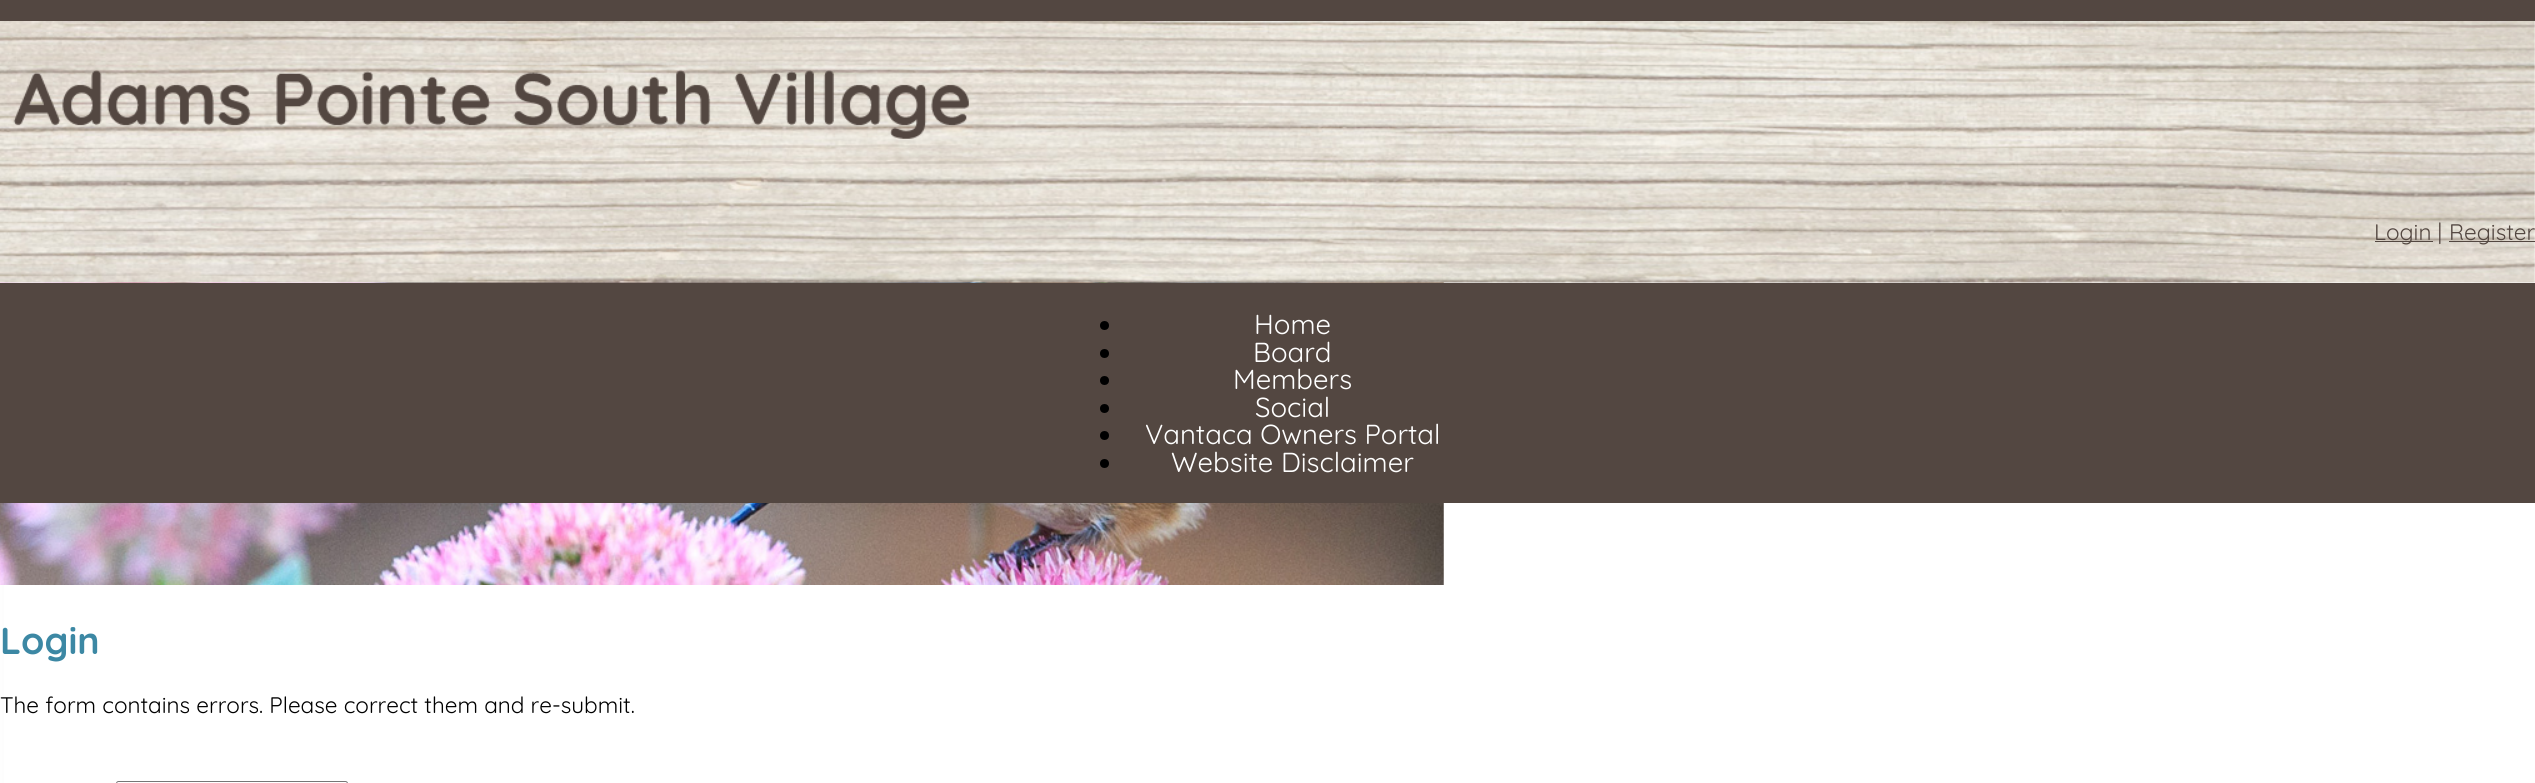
import math
import cairo


def round_path(ctx, x, y, w, h, r):
	ctx.new_sub_path()
	for i, (u, v) in enumerate([(x + w - r, y + h - r), (x + r, y + h - r), (x + r, y + r), (x + w - r, y + r)]):
		ctx.arc(u, v, r, i * math.pi / 2, (i + 1) * math.pi / 2)
	ctx.close_path()

def blur_box(ctx, x, y, w, h, r, blur, alpha):
	ctx.push_group_with_content(cairo.CONTENT_ALPHA)
	ctx.set_operator(cairo.OPERATOR_SOURCE)
	for i in range(15, -16, -2):
		e = blur * i / 6
		if min(w, h) + 2 * e > 0:
			ctx.set_source_rgba(0, 0, 0, alpha * math.erfc((i - 1) / 8.5) / 2)
			round_path(ctx, x - e, y - e, w + 2 * e, h + 2 * e, max(0, min(r + e + blur * .6, min(w, h) / 2 + e)))
			ctx.fill()
	ctx.mask(ctx.pop_group())

def paste(ctx, path, x, y, w, h):
	ctx.save()
	ctx.set_source_surface(cairo.ImageSurface.create_from_png(path), x, y)
	ctx.rectangle(x, y, w, h)
	ctx.fill()
	ctx.restore()

def draw(ctx):
	ctx.set_source_rgb(1, 1, 1)
	ctx.paint()
	ctx.set_source_rgb(0.325, 0.278, 0.255)
	ctx.rectangle(0, 0, 2535, 21)
	ctx.fill()
	ctx.set_source_rgb(0, 0, 0)
	blur_box(ctx, 20, 265, 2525, 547, 0, 9.5, 0.2)
	ctx.set_source_rgb(1, 1, 1)
	ctx.rectangle(4, 260, 2531, 523)
	ctx.fill()
	paste(ctx, 'media/3.png', 0, 282, 1444, 303)
	paste(ctx, 'media/1.png', 0, 21, 2535, 262)
	paste(ctx, 'media/2.png', 13, 70, 956, 69)
	ctx.set_source_rgb(0.325, 0.278, 0.255)
	ctx.rectangle(2375, 241, 58, 1)
	ctx.fill()
	ctx.select_font_face('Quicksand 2 Light')
	ctx.set_font_size(22.5)
	ctx.move_to(2374, 240)
	ctx.show_text('Login |')
	ctx.rectangle(2449, 241, 86, 1)
	ctx.fill()
	ctx.move_to(2449, 240)
	ctx.show_text('Register')
	ctx.rectangle(0, 283, 2535, 220)
	ctx.fill()
	ctx.set_source_rgb(0, 0, 0)
	ctx.arc(1104.5, 325.5, 4.5, 0, 2 * math.pi)
	ctx.fill()
	ctx.set_font_size(27.5)
	ctx.set_source_rgb(1, 1, 1)
	ctx.move_to(1254, 334)
	ctx.show_text('Home')
	ctx.set_source_rgb(0, 0, 0)
	ctx.new_path()
	ctx.arc(1104.5, 353.5, 4.5, 0, 2 * math.pi)
	ctx.fill()
	ctx.set_source_rgb(1, 1, 1)
	ctx.move_to(1253, 362)
	ctx.show_text('Board')
	ctx.set_source_rgb(0, 0, 0)
	ctx.new_path()
	ctx.arc(1104.5, 380.5, 4.5, 0, 2 * math.pi)
	ctx.fill()
	ctx.set_source_rgb(1, 1, 1)
	ctx.move_to(1233, 389)
	ctx.show_text('Members')
	ctx.set_source_rgb(0, 0, 0)
	ctx.new_path()
	ctx.arc(1104.5, 408.5, 4.5, 0, 2 * math.pi)
	ctx.fill()
	ctx.set_source_rgb(1, 1, 1)
	ctx.move_to(1255, 417)
	ctx.show_text('Social')
	ctx.set_source_rgb(0, 0, 0)
	ctx.new_path()
	ctx.arc(1104.5, 435.5, 4.5, 0, 2 * math.pi)
	ctx.fill()
	ctx.set_source_rgb(1, 1, 1)
	ctx.move_to(1145, 444)
	ctx.show_text('Vantaca Owners Portal')
	ctx.set_source_rgb(0, 0, 0)
	ctx.new_path()
	ctx.arc(1104.5, 463.5, 4.5, 0, 2 * math.pi)
	ctx.fill()
	ctx.set_source_rgb(1, 1, 1)
	ctx.move_to(1171, 472)
	ctx.show_text('Website Disclaimer')
	ctx.select_font_face('Quicksand Light')
	ctx.set_font_size(37.5)
	ctx.set_source_rgb(0.235, 0.533, 0.643)
	ctx.move_to(0, 654)
	ctx.show_text('Login')
	ctx.select_font_face('Quicksand 2 Light')
	ctx.set_font_size(22.5)
	ctx.set_source_rgb(0, 0, 0)
	ctx.move_to(0, 713)
	ctx.show_text('The form contains errors. Please correct them and re-submit.')
	round_path(ctx, 116.5, 781.5, 231, 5, 2)
	ctx.set_source_rgb(0.463, 0.463, 0.463)
	ctx.set_line_width(1)
	ctx.stroke()


surface = cairo.ImageSurface(cairo.FORMAT_RGB24, 2535, 783)
ctx = cairo.Context(surface)
options = cairo.FontOptions()
options.set_hint_metrics(cairo.HINT_METRICS_OFF)
options.set_hint_style(cairo.HINT_STYLE_NONE)
ctx.set_font_options(options)
ctx.set_miter_limit(4)
draw(ctx)
surface.write_to_png('image.png')
